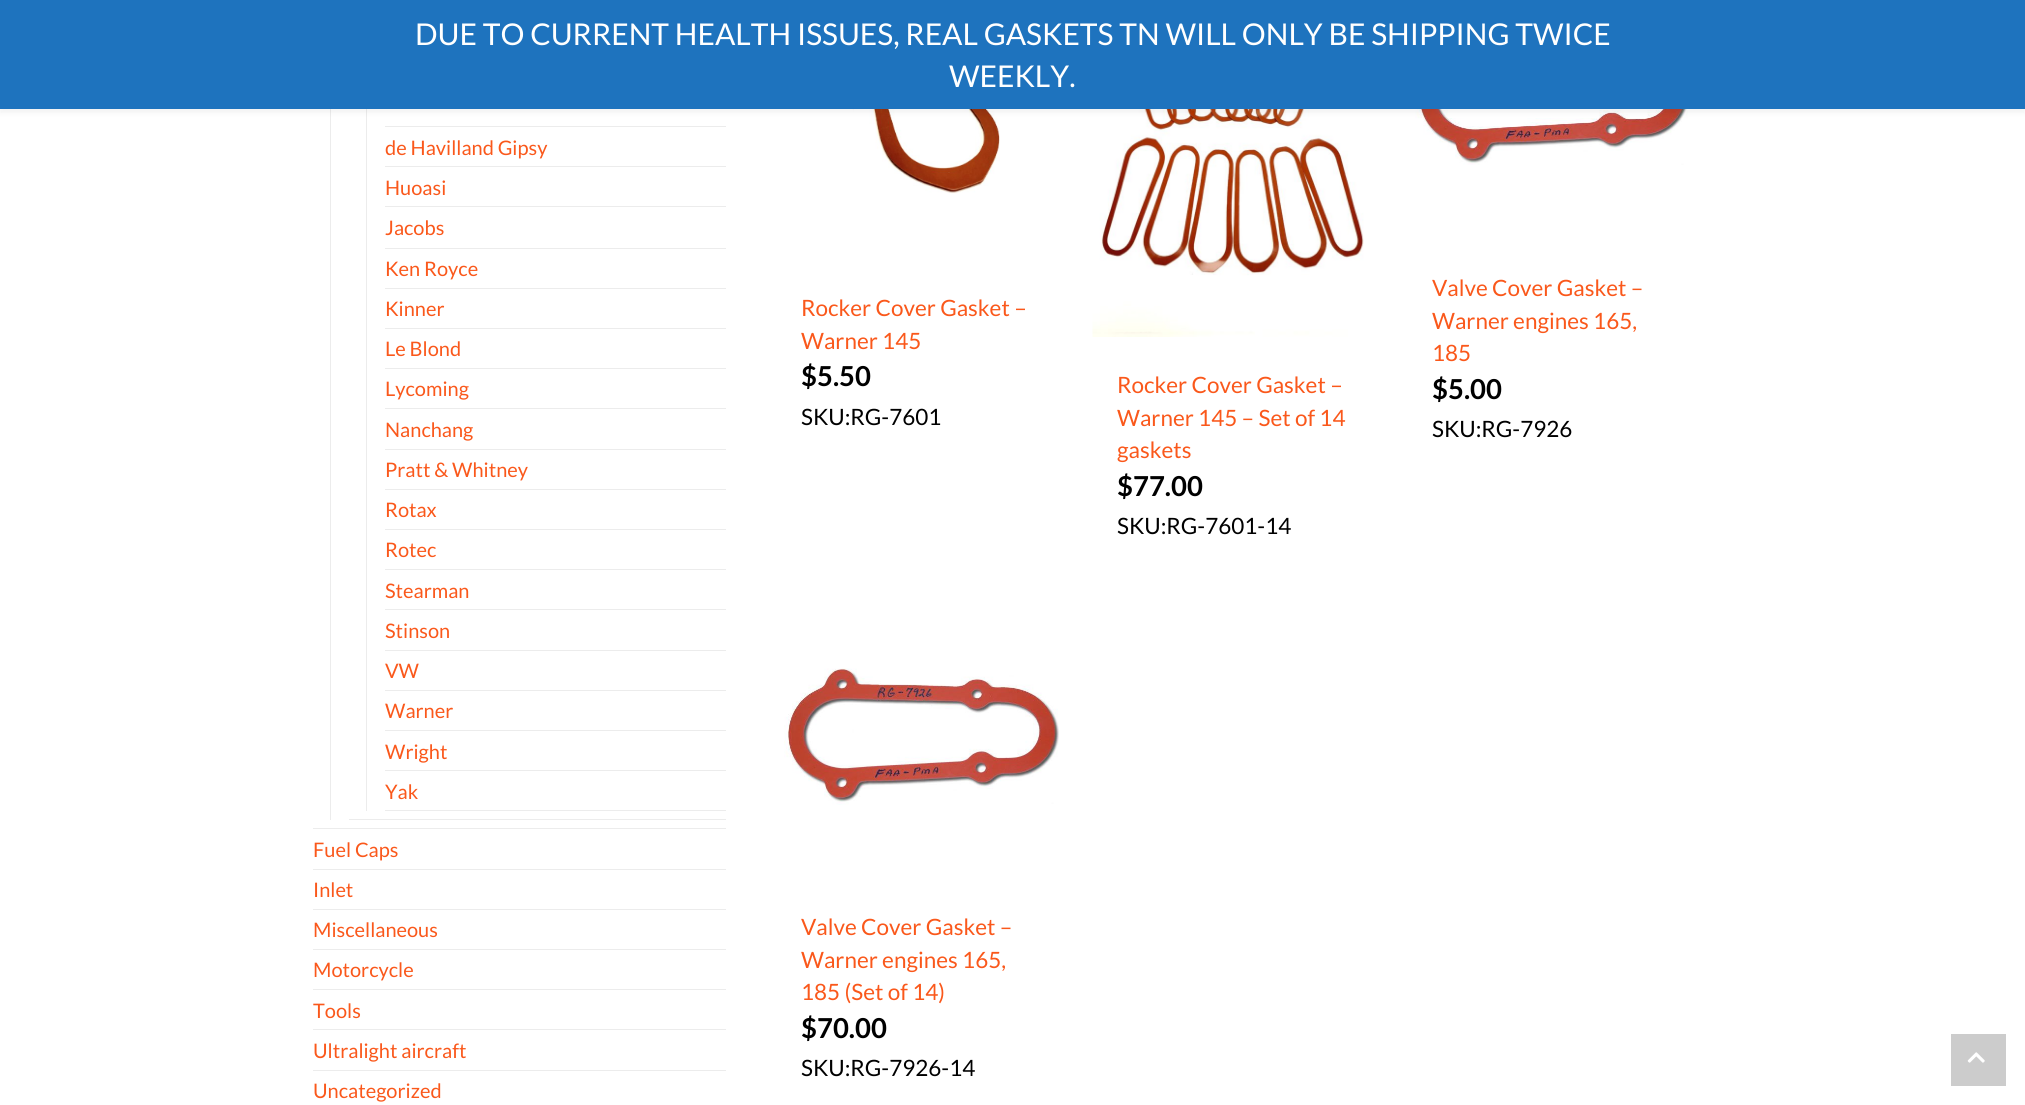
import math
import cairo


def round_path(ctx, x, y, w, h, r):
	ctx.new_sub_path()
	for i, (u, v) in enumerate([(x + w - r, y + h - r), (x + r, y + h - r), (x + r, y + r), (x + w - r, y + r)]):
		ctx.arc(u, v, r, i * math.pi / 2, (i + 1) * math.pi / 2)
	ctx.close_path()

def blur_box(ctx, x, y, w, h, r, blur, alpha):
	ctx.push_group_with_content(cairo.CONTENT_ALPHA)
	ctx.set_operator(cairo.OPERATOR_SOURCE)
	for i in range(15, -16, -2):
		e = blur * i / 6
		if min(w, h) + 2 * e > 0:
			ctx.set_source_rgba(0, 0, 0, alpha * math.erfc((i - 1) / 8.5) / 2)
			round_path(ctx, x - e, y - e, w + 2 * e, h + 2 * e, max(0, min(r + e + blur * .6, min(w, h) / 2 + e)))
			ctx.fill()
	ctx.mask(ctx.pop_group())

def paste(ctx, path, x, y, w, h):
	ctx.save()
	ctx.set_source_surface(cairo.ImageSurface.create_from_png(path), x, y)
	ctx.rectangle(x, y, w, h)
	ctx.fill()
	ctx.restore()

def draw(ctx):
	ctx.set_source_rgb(1, 1, 1)
	ctx.paint()
	ctx.set_source_rgb(0.925, 0.925, 0.925)
	ctx.rectangle(330, 109, 1, 711)
	ctx.fill()
	ctx.rectangle(366, 109, 1, 702)
	ctx.fill()
	paste(ctx, 'media/1.png', 801, 109, 199, 85)
	paste(ctx, 'media/2.png', 1415, 109, 274, 56)
	paste(ctx, 'media/3.png', 1092, 109, 272, 228)
	ctx.set_source_rgb(0, 0, 0)
	blur_box(ctx, 0, 4, 2025, 109, 0, 2.5, 0.05)
	ctx.set_source_rgb(0.118, 0.451, 0.745)
	ctx.rectangle(0, 0, 2025, 109)
	ctx.fill()
	ctx.select_font_face('Lato')
	ctx.set_font_size(30)
	ctx.set_source_rgb(1, 1, 1)
	ctx.move_to(415, 45)
	ctx.show_text('DUE TO CURRENT HEALTH ISSUES, REAL GASKETS TN WILL ONLY BE SHIPPING TWICE')
	ctx.move_to(949, 87)
	ctx.show_text('WEEKLY.')
	ctx.set_source_rgb(0.925, 0.925, 0.925)
	ctx.rectangle(313, 828, 413, 1)
	ctx.rectangle(349, 819, 377, 1)
	ctx.rectangle(385, 126, 341, 1)
	ctx.rectangle(385, 166, 341, 1)
	ctx.fill()
	ctx.set_font_size(20)
	ctx.set_source_rgb(0.98, 0.345, 0.106)
	ctx.move_to(385, 155)
	ctx.show_text('de Havilland Gipsy')
	ctx.set_source_rgb(0.925, 0.925, 0.925)
	ctx.rectangle(385, 206, 341, 1)
	ctx.fill()
	ctx.set_source_rgb(0.98, 0.345, 0.106)
	ctx.move_to(385, 195)
	ctx.show_text('Huoasi')
	ctx.set_source_rgb(0.925, 0.925, 0.925)
	ctx.rectangle(385, 248, 341, 1)
	ctx.fill()
	ctx.set_source_rgb(0.98, 0.345, 0.106)
	ctx.move_to(385, 235)
	ctx.show_text('Jacobs')
	ctx.set_source_rgb(0.925, 0.925, 0.925)
	ctx.rectangle(385, 288, 341, 1)
	ctx.fill()
	ctx.set_source_rgb(0.98, 0.345, 0.106)
	ctx.move_to(385, 276)
	ctx.show_text('Ken Royce')
	ctx.set_source_rgb(0.925, 0.925, 0.925)
	ctx.rectangle(385, 328, 341, 1)
	ctx.fill()
	ctx.set_source_rgb(0.98, 0.345, 0.106)
	ctx.move_to(385, 316)
	ctx.show_text('Kinner')
	ctx.set_source_rgb(0.925, 0.925, 0.925)
	ctx.rectangle(385, 368, 341, 1)
	ctx.fill()
	ctx.set_source_rgb(0.98, 0.345, 0.106)
	ctx.move_to(385, 356)
	ctx.show_text('Le Blond')
	ctx.set_source_rgb(0.925, 0.925, 0.925)
	ctx.rectangle(385, 408, 341, 1)
	ctx.fill()
	ctx.set_source_rgb(0.98, 0.345, 0.106)
	ctx.move_to(385, 396)
	ctx.show_text('Lycoming')
	ctx.set_source_rgb(0.925, 0.925, 0.925)
	ctx.rectangle(385, 449, 341, 1)
	ctx.fill()
	ctx.set_source_rgb(0.98, 0.345, 0.106)
	ctx.move_to(385, 437)
	ctx.show_text('Nanchang')
	ctx.set_source_rgb(0.925, 0.925, 0.925)
	ctx.rectangle(385, 489, 341, 1)
	ctx.fill()
	ctx.set_source_rgb(0.98, 0.345, 0.106)
	ctx.move_to(385, 477)
	ctx.show_text('Pratt & Whitney')
	ctx.set_source_rgb(0.925, 0.925, 0.925)
	ctx.rectangle(385, 529, 341, 1)
	ctx.fill()
	ctx.set_source_rgb(0.98, 0.345, 0.106)
	ctx.move_to(385, 517)
	ctx.show_text('Rotax')
	ctx.set_source_rgb(0.925, 0.925, 0.925)
	ctx.rectangle(385, 569, 341, 1)
	ctx.fill()
	ctx.set_source_rgb(0.98, 0.345, 0.106)
	ctx.move_to(385, 557)
	ctx.show_text('Rotec')
	ctx.set_source_rgb(0.925, 0.925, 0.925)
	ctx.rectangle(385, 609, 341, 1)
	ctx.fill()
	ctx.set_source_rgb(0.98, 0.345, 0.106)
	ctx.move_to(385, 598)
	ctx.show_text('Stearman')
	ctx.set_source_rgb(0.925, 0.925, 0.925)
	ctx.rectangle(385, 650, 341, 1)
	ctx.fill()
	ctx.set_source_rgb(0.98, 0.345, 0.106)
	ctx.move_to(385, 638)
	ctx.show_text('Stinson')
	ctx.set_source_rgb(0.925, 0.925, 0.925)
	ctx.rectangle(385, 690, 341, 1)
	ctx.fill()
	ctx.set_source_rgb(0.98, 0.345, 0.106)
	ctx.move_to(385, 678)
	ctx.show_text('VW')
	ctx.set_source_rgb(0.925, 0.925, 0.925)
	ctx.rectangle(385, 730, 341, 1)
	ctx.fill()
	ctx.set_source_rgb(0.98, 0.345, 0.106)
	ctx.move_to(385, 718)
	ctx.show_text('Warner')
	ctx.set_source_rgb(0.925, 0.925, 0.925)
	ctx.rectangle(385, 770, 341, 1)
	ctx.fill()
	ctx.set_source_rgb(0.98, 0.345, 0.106)
	ctx.move_to(385, 759)
	ctx.show_text('Wright')
	ctx.set_source_rgb(0.925, 0.925, 0.925)
	ctx.rectangle(385, 810, 341, 1)
	ctx.fill()
	ctx.set_source_rgb(0.98, 0.345, 0.106)
	ctx.move_to(385, 799)
	ctx.show_text('Yak')
	ctx.set_source_rgb(0.925, 0.925, 0.925)
	ctx.rectangle(313, 869, 413, 1)
	ctx.fill()
	ctx.set_source_rgb(0.98, 0.345, 0.106)
	ctx.move_to(313, 857)
	ctx.show_text('Fuel Caps')
	ctx.set_source_rgb(0.925, 0.925, 0.925)
	ctx.rectangle(313, 909, 413, 1)
	ctx.fill()
	ctx.set_source_rgb(0.98, 0.345, 0.106)
	ctx.move_to(313, 897)
	ctx.show_text('Inlet')
	ctx.set_source_rgb(0.925, 0.925, 0.925)
	ctx.rectangle(313, 949, 413, 1)
	ctx.fill()
	ctx.set_source_rgb(0.98, 0.345, 0.106)
	ctx.move_to(313, 937)
	ctx.show_text('Miscellaneous')
	ctx.set_source_rgb(0.925, 0.925, 0.925)
	ctx.rectangle(313, 989, 413, 1)
	ctx.fill()
	ctx.set_source_rgb(0.98, 0.345, 0.106)
	ctx.move_to(313, 977)
	ctx.show_text('Motorcycle')
	ctx.set_source_rgb(0.925, 0.925, 0.925)
	ctx.rectangle(313, 1029, 413, 1)
	ctx.fill()
	ctx.set_source_rgb(0.98, 0.345, 0.106)
	ctx.move_to(313, 1018)
	ctx.show_text('Tools')
	ctx.set_source_rgb(0.925, 0.925, 0.925)
	ctx.rectangle(313, 1070, 413, 1)
	ctx.fill()
	ctx.set_source_rgb(0.98, 0.345, 0.106)
	ctx.move_to(313, 1058)
	ctx.show_text('Ultralight aircraft')
	ctx.move_to(313, 1098)
	ctx.show_text('Uncategorized')
	ctx.set_font_size(22.5)
	ctx.move_to(801, 316)
	ctx.show_text('Rocker Cover Gasket –')
	ctx.move_to(801, 349)
	ctx.show_text('Warner 145')
	ctx.select_font_face('Lato', cairo.FONT_SLANT_NORMAL, cairo.FONT_WEIGHT_BOLD)
	ctx.set_font_size(27.5)
	ctx.set_source_rgb(0, 0, 0)
	ctx.move_to(801, 386)
	ctx.show_text('$5.50')
	ctx.select_font_face('Lato')
	ctx.set_font_size(22.5)
	ctx.move_to(801, 425)
	ctx.show_text('SKU:RG-7601')
	ctx.set_source_rgb(0.98, 0.345, 0.106)
	for x, y, s in [
		(1432, 296, 'Valve Cover Gasket –'),
		(1432, 329, 'Warner engines 165,'),
		(1432, 361, '185'),
	]:
		ctx.move_to(x, y)
		ctx.show_text(s)
	ctx.select_font_face('Lato', cairo.FONT_SLANT_NORMAL, cairo.FONT_WEIGHT_BOLD)
	ctx.set_font_size(27.5)
	ctx.set_source_rgb(0, 0, 0)
	ctx.move_to(1432, 399)
	ctx.show_text('$5.00')
	ctx.select_font_face('Lato')
	ctx.set_font_size(22.5)
	ctx.move_to(1432, 437)
	ctx.show_text('SKU:RG-7926')
	ctx.set_source_rgb(0.98, 0.345, 0.106)
	for x, y, s in [
		(1117, 393, 'Rocker Cover Gasket –'),
		(1117, 426, 'Warner 145 – Set of 14'),
		(1117, 458, 'gaskets'),
	]:
		ctx.move_to(x, y)
		ctx.show_text(s)
	ctx.select_font_face('Lato', cairo.FONT_SLANT_NORMAL, cairo.FONT_WEIGHT_BOLD)
	ctx.set_font_size(27.5)
	ctx.set_source_rgb(0, 0, 0)
	ctx.move_to(1117, 496)
	ctx.show_text('$77.00')
	ctx.select_font_face('Lato')
	ctx.set_font_size(22.5)
	ctx.move_to(1117, 534)
	ctx.show_text('SKU:RG-7601-14')
	paste(ctx, 'media/4.png', 784, 668, 275, 137)
	ctx.set_source_rgb(0.98, 0.345, 0.106)
	for x, y, s in [
		(801, 935, 'Valve Cover Gasket –'),
		(801, 968, 'Warner engines 165,'),
		(801, 1000, '185 (Set of 14)'),
	]:
		ctx.move_to(x, y)
		ctx.show_text(s)
	ctx.select_font_face('Lato', cairo.FONT_SLANT_NORMAL, cairo.FONT_WEIGHT_BOLD)
	ctx.set_font_size(27.5)
	ctx.set_source_rgb(0, 0, 0)
	ctx.move_to(801, 1038)
	ctx.show_text('$70.00')
	ctx.select_font_face('Lato')
	ctx.set_font_size(22.5)
	ctx.move_to(801, 1076)
	ctx.show_text('SKU:RG-7926-14')
	ctx.set_source_rgb(0.8, 0.8, 0.8)
	ctx.rectangle(1951, 1034, 55, 52)
	ctx.fill()
	paste(ctx, 'media/5.png', 1967, 1052, 18, 11)


surface = cairo.ImageSurface(cairo.FORMAT_RGB24, 2025, 1105)
ctx = cairo.Context(surface)
options = cairo.FontOptions()
options.set_hint_metrics(cairo.HINT_METRICS_OFF)
options.set_hint_style(cairo.HINT_STYLE_NONE)
ctx.set_font_options(options)
ctx.set_miter_limit(4)
draw(ctx)
surface.write_to_png('image.png')
